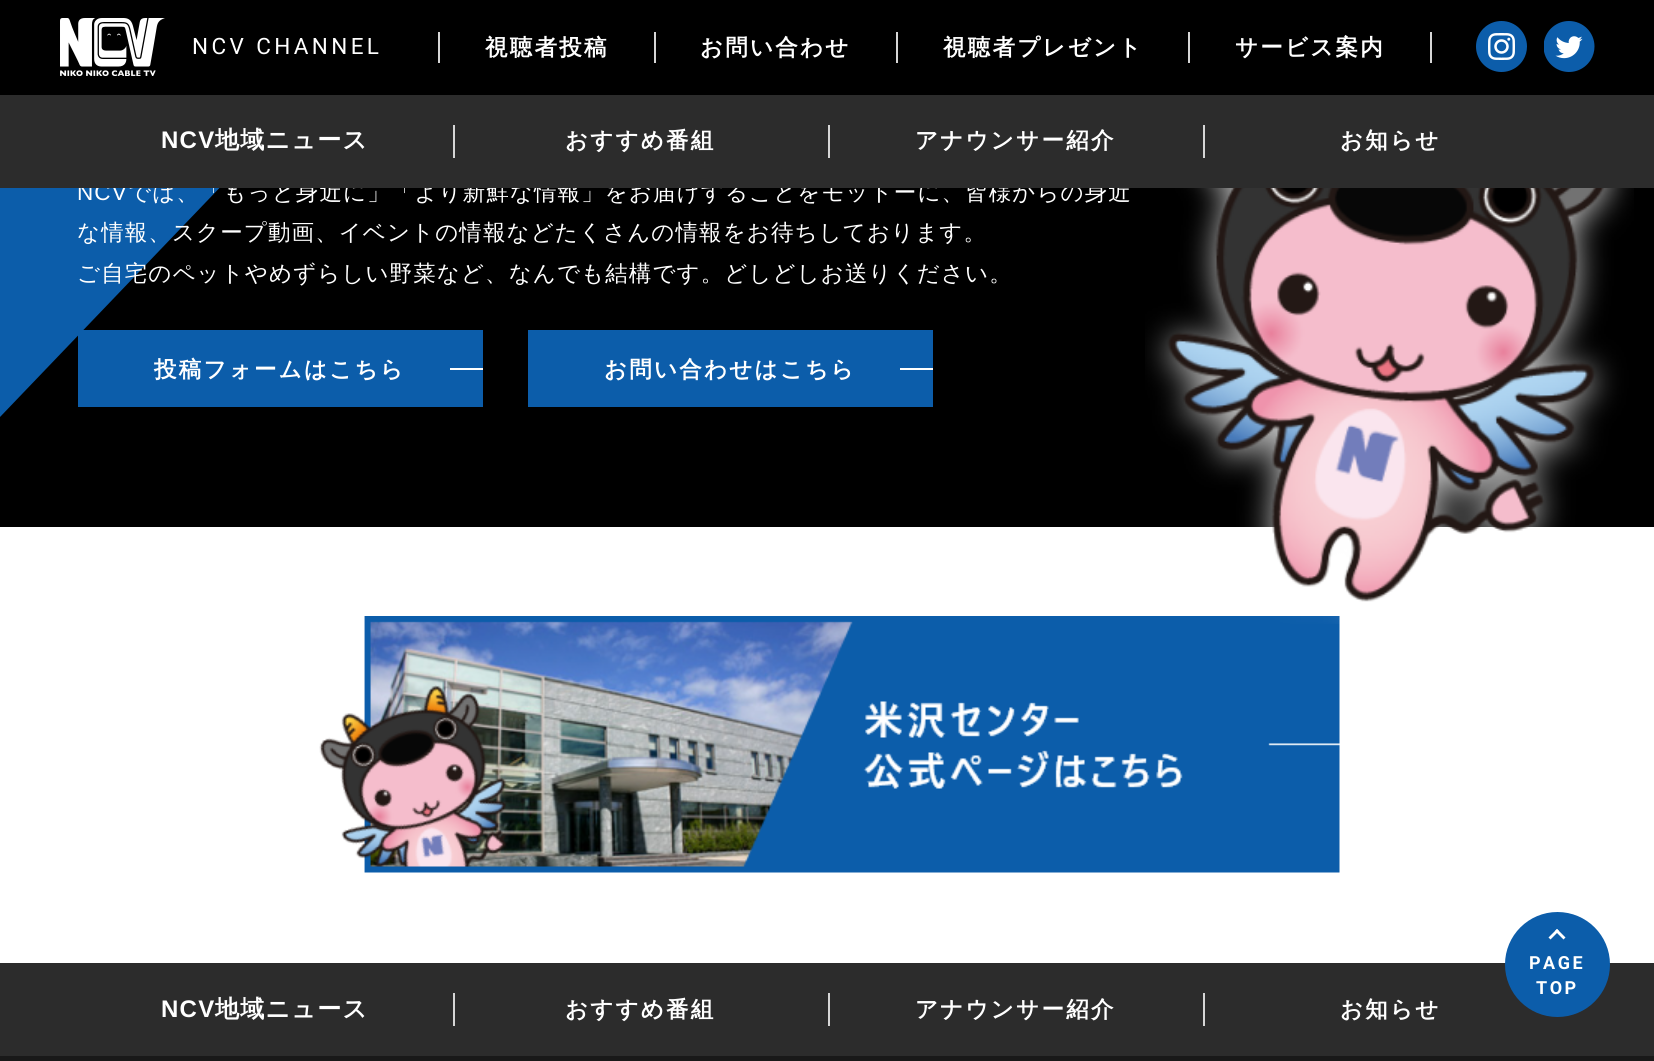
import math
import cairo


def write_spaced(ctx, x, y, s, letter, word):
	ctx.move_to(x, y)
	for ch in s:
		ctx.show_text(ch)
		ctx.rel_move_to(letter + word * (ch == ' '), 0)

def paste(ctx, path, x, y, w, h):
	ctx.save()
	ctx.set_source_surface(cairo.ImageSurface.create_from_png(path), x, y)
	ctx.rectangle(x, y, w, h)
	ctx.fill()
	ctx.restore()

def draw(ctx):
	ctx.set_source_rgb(0, 0, 0)
	ctx.paint()
	ctx.set_source_rgb(0.047, 0.365, 0.667)
	ctx.new_path()
	ctx.move_to(0, -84)
	ctx.line_to(480, -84)
	ctx.line_to(0, 417)
	ctx.close_path()
	ctx.fill()
	ctx.set_source_rgb(0, 0, 0)
	ctx.rectangle(0, 0, 400, 95)
	ctx.fill()
	paste(ctx, 'media/1.png', 60, 18, 105, 58)
	ctx.select_font_face('Roboto')
	ctx.set_font_size(22.5)
	ctx.set_source_rgb(1, 1, 1)
	write_spaced(ctx, 192, 54, 'NCV CHANNEL', 3.4, 0)
	ctx.set_source_rgb(0.839, 0.839, 0.839)
	ctx.rectangle(438, 32, 2, 31)
	ctx.fill()
	ctx.select_font_face('WenQuanYi Zen Hei', cairo.FONT_SLANT_NORMAL, cairo.FONT_WEIGHT_BOLD)
	ctx.set_source_rgb(1, 1, 1)
	write_spaced(ctx, 485, 55, '視聴者投稿', 2.25, 0)
	ctx.set_source_rgb(0.839, 0.839, 0.839)
	ctx.rectangle(654, 32, 2, 31)
	ctx.fill()
	ctx.set_source_rgb(1, 1, 1)
	write_spaced(ctx, 700, 55, 'お問い合わせ', 2.25, 0)
	ctx.set_source_rgb(0.839, 0.839, 0.839)
	ctx.rectangle(896, 32, 2, 31)
	ctx.fill()
	ctx.set_source_rgb(1, 1, 1)
	write_spaced(ctx, 943, 55, '視聴者プレゼント', 2.25, 0)
	ctx.set_source_rgb(0.839, 0.839, 0.839)
	ctx.rectangle(1430, 32, 2, 31)
	ctx.fill()
	ctx.rectangle(1188, 32, 2, 31)
	ctx.fill()
	ctx.set_source_rgb(1, 1, 1)
	write_spaced(ctx, 1235, 55, 'サービス案内', 2.25, 0)
	paste(ctx, 'media/2.png', 1476, 21, 51, 51)
	paste(ctx, 'media/3.png', 1544, 21, 51, 51)
	ctx.select_font_face('Liberation Sans')
	write_spaced(ctx, 77, 200, 'NCV', 1.1, 0)
	ctx.select_font_face('WenQuanYi Zen Hei Medium')
	write_spaced(ctx, 128, 200, 'では、「もっと身近に」「より新鮮な情報」をお届けすることをモットーに、皆様からの身近', 1.1, 0)
	ctx.set_source_rgb(0.173, 0.173, 0.173)
	ctx.rectangle(0, 95, 1654, 93)
	ctx.fill()
	ctx.select_font_face('Liberation Sans', cairo.FONT_SLANT_NORMAL, cairo.FONT_WEIGHT_BOLD)
	ctx.set_font_size(24)
	ctx.set_source_rgb(1, 1, 1)
	write_spaced(ctx, 161, 148, 'NCV', 1.25, 0)
	ctx.select_font_face('WenQuanYi Zen Hei', cairo.FONT_SLANT_NORMAL, cairo.FONT_WEIGHT_BOLD)
	write_spaced(ctx, 215, 148, '地域ニュース', 1.25, 0)
	ctx.set_source_rgb(0.839, 0.839, 0.839)
	ctx.rectangle(453, 125, 2, 33)
	ctx.fill()
	ctx.set_font_size(22.5)
	ctx.set_source_rgb(1, 1, 1)
	write_spaced(ctx, 565, 148, 'おすすめ番組', 2.25, 0)
	ctx.set_source_rgb(0.839, 0.839, 0.839)
	ctx.rectangle(828, 125, 2, 33)
	ctx.fill()
	ctx.set_source_rgb(1, 1, 1)
	write_spaced(ctx, 915, 148, 'アナウンサー紹介', 2.25, 0)
	ctx.set_source_rgb(0.839, 0.839, 0.839)
	ctx.rectangle(1203, 125, 2, 33)
	ctx.fill()
	ctx.set_source_rgb(1, 1, 1)
	write_spaced(ctx, 1340, 148, 'お知らせ', 2.25, 0)
	ctx.select_font_face('WenQuanYi Zen Hei Medium')
	write_spaced(ctx, 77, 240, 'な情報、スクープ動画、イベントの情報などたくさんの情報をお待ちしております。', 1.1, 0)
	write_spaced(ctx, 77, 281, 'ご自宅のペットやめずらしい野菜など、なんでも結構です。どしどしお送りください。', 1.1, 0)
	ctx.set_source_rgb(0.047, 0.365, 0.667)
	ctx.rectangle(78, 330, 405, 77)
	ctx.fill()
	ctx.select_font_face('WenQuanYi Zen Hei', cairo.FONT_SLANT_NORMAL, cairo.FONT_WEIGHT_BOLD)
	ctx.set_source_rgb(1, 1, 1)
	write_spaced(ctx, 154, 377, '投稿フォームはこちら', 2.25, 0)
	ctx.rectangle(450, 368, 33, 2)
	ctx.fill()
	ctx.set_source_rgb(0.047, 0.365, 0.667)
	ctx.rectangle(528, 330, 405, 77)
	ctx.fill()
	ctx.set_source_rgb(1, 1, 1)
	write_spaced(ctx, 604, 377, 'お問い合わせはこちら', 2.25, 0)
	ctx.rectangle(900, 368, 33, 2)
	ctx.fill()
	ctx.rectangle(0, 527, 1654, 436)
	ctx.fill()
	paste(ctx, 'media/5.png', 319, 616, 1021, 257)
	paste(ctx, 'media/4.png', 1145, 188, 489, 436)
	ctx.set_source_rgb(0.173, 0.173, 0.173)
	ctx.rectangle(0, 963, 1654, 93)
	ctx.fill()
	ctx.set_source_rgb(0.047, 0.365, 0.667)
	ctx.arc(1557.5, 964.5, 52.5, 0, 2 * math.pi)
	ctx.fill()
	ctx.set_source_rgb(1, 1, 1)
	ctx.new_path()
	ctx.move_to(1548.5, 937.5)
	ctx.line_to(1557, 929)
	ctx.line_to(1559, 931)
	ctx.line_to(1550.5, 939.5)
	ctx.close_path()
	ctx.fill()
	ctx.new_path()
	ctx.move_to(1555, 931)
	ctx.line_to(1557, 929)
	ctx.line_to(1565.5, 937.5)
	ctx.line_to(1563.5, 939.5)
	ctx.close_path()
	ctx.fill()
	ctx.select_font_face('Roboto', cairo.FONT_SLANT_NORMAL, cairo.FONT_WEIGHT_BOLD)
	ctx.set_font_size(18)
	write_spaced(ctx, 1529, 969, 'PAGE', 2.5, 0)
	write_spaced(ctx, 1536, 994, 'TOP', 2.5, 0)
	ctx.select_font_face('Liberation Sans', cairo.FONT_SLANT_NORMAL, cairo.FONT_WEIGHT_BOLD)
	ctx.set_font_size(24)
	write_spaced(ctx, 161, 1017, 'NCV', 1.25, 0)
	ctx.select_font_face('WenQuanYi Zen Hei', cairo.FONT_SLANT_NORMAL, cairo.FONT_WEIGHT_BOLD)
	write_spaced(ctx, 215, 1017, '地域ニュース', 1.25, 0)
	ctx.set_source_rgb(0.839, 0.839, 0.839)
	ctx.rectangle(453, 993, 2, 33)
	ctx.fill()
	ctx.set_font_size(22.5)
	ctx.set_source_rgb(1, 1, 1)
	write_spaced(ctx, 565, 1017, 'おすすめ番組', 2.25, 0)
	ctx.set_source_rgb(0.839, 0.839, 0.839)
	ctx.rectangle(828, 993, 2, 33)
	ctx.fill()
	ctx.set_source_rgb(1, 1, 1)
	write_spaced(ctx, 915, 1017, 'アナウンサー紹介', 2.25, 0)
	ctx.set_source_rgb(0.839, 0.839, 0.839)
	ctx.rectangle(1203, 993, 2, 33)
	ctx.fill()
	ctx.set_source_rgb(1, 1, 1)
	write_spaced(ctx, 1340, 1017, 'お知らせ', 2.25, 0)
	ctx.set_source_rgb(0.098, 0.098, 0.098)
	ctx.rectangle(0, 1056, 1654, 5)
	ctx.fill()


surface = cairo.ImageSurface(cairo.FORMAT_RGB24, 1654, 1061)
ctx = cairo.Context(surface)
options = cairo.FontOptions()
options.set_hint_metrics(cairo.HINT_METRICS_OFF)
options.set_hint_style(cairo.HINT_STYLE_NONE)
ctx.set_font_options(options)
ctx.set_miter_limit(4)
draw(ctx)
surface.write_to_png('image.png')
